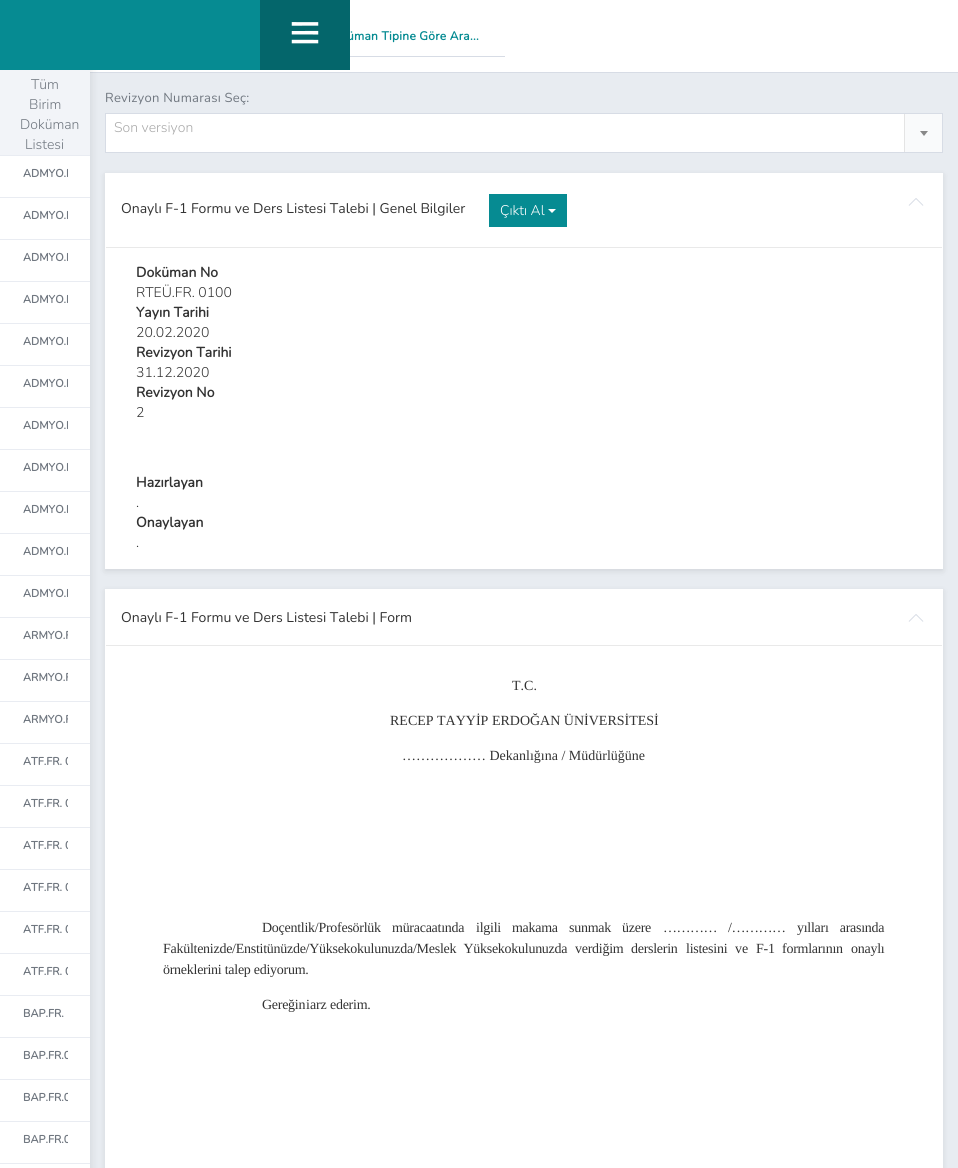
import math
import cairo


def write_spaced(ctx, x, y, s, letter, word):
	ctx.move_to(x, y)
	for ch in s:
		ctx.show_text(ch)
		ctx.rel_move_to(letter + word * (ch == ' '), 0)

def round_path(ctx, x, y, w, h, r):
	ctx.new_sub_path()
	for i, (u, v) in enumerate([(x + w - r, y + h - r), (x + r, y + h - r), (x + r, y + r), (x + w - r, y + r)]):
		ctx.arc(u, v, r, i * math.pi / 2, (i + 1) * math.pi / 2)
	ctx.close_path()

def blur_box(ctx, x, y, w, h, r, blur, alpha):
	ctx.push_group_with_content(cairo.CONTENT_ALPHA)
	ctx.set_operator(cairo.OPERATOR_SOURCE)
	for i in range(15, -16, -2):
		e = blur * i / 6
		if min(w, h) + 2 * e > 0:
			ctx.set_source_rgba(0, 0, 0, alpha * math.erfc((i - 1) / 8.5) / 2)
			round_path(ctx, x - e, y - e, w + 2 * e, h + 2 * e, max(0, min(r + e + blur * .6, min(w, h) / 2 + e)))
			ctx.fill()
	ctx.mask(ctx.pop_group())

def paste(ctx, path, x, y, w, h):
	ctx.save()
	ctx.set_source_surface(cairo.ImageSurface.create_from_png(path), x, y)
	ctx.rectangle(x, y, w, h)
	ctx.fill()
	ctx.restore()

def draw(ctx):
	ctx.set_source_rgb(0.91, 0.922, 0.945)
	ctx.paint()
	ctx.set_source_rgb(1, 1, 1)
	ctx.rectangle(90, 0, 868, 72)
	ctx.fill()
	ctx.set_source_rgb(0.843, 0.863, 0.898)
	ctx.rectangle(90, 72, 868, 1)
	ctx.fill()
	ctx.set_source_rgb(0, 0, 0)
	blur_box(ctx, -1, -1, 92, 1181, 0, 4, 0.1)
	ctx.set_source_rgb(1, 1, 1)
	ctx.rectangle(0, 156, 90, 1012)
	ctx.fill()
	ctx.set_source_rgb(0.024, 0.545, 0.573)
	ctx.rectangle(0, 0, 260, 70)
	ctx.fill()
	ctx.select_font_face('Nunito', cairo.FONT_SLANT_NORMAL, cairo.FONT_WEIGHT_BOLD)
	ctx.set_font_size(12)
	write_spaced(ctx, 347, 40, 'üman Tipine Göre Ara...', 0.25, 0)
	ctx.set_source_rgb(0.016, 0.4, 0.42)
	ctx.rectangle(260, 0, 90, 70)
	ctx.fill()
	paste(ctx, 'media/1.png', 291, 22, 28, 22)
	ctx.set_source_rgb(0.949, 0.957, 0.969)
	ctx.rectangle(0, 70, 90, 85)
	ctx.fill()
	ctx.set_source_rgb(0.914, 0.925, 0.949)
	ctx.rectangle(0, 155, 90, 1)
	ctx.fill()
	ctx.select_font_face('Nunito Light')
	ctx.set_font_size(14)
	ctx.set_source_rgb(0.439, 0.467, 0.502)
	for x, y, s in [
		(31, 89, 'Tüm'),
		(29, 109, 'Birim'),
		(20, 129, 'Doküman'),
		(25, 149, 'Listesi'),
	]:
		ctx.move_to(x, y)
		ctx.show_text(s)
	ctx.set_source_rgb(0.914, 0.925, 0.949)
	ctx.rectangle(0, 197, 90, 1)
	ctx.fill()
	ctx.save()
	ctx.rectangle(23, 156, 45, 35)
	ctx.clip()
	ctx.select_font_face('Nunito', cairo.FONT_SLANT_NORMAL, cairo.FONT_WEIGHT_BOLD)
	ctx.set_font_size(11)
	ctx.set_source_rgb(0.439, 0.467, 0.502)
	ctx.move_to(23, 177)
	ctx.show_text('ADMYO.F')
	ctx.restore()
	ctx.rectangle(0, 239, 90, 1)
	ctx.fill()
	ctx.save()
	ctx.rectangle(23, 198, 45, 35)
	ctx.clip()
	ctx.select_font_face('Nunito', cairo.FONT_SLANT_NORMAL, cairo.FONT_WEIGHT_BOLD)
	ctx.set_font_size(11)
	ctx.set_source_rgb(0.439, 0.467, 0.502)
	ctx.move_to(23, 219)
	ctx.show_text('ADMYO.F')
	ctx.restore()
	ctx.rectangle(0, 281, 90, 1)
	ctx.fill()
	ctx.save()
	ctx.rectangle(23, 240, 45, 35)
	ctx.clip()
	ctx.select_font_face('Nunito', cairo.FONT_SLANT_NORMAL, cairo.FONT_WEIGHT_BOLD)
	ctx.set_font_size(11)
	ctx.set_source_rgb(0.439, 0.467, 0.502)
	ctx.move_to(23, 261)
	ctx.show_text('ADMYO.F')
	ctx.restore()
	ctx.rectangle(0, 323, 90, 1)
	ctx.fill()
	ctx.save()
	ctx.rectangle(23, 282, 45, 35)
	ctx.clip()
	ctx.select_font_face('Nunito', cairo.FONT_SLANT_NORMAL, cairo.FONT_WEIGHT_BOLD)
	ctx.set_font_size(11)
	ctx.set_source_rgb(0.439, 0.467, 0.502)
	ctx.move_to(23, 303)
	ctx.show_text('ADMYO.F')
	ctx.restore()
	ctx.rectangle(0, 365, 90, 1)
	ctx.fill()
	ctx.save()
	ctx.rectangle(23, 324, 45, 35)
	ctx.clip()
	ctx.select_font_face('Nunito', cairo.FONT_SLANT_NORMAL, cairo.FONT_WEIGHT_BOLD)
	ctx.set_font_size(11)
	ctx.set_source_rgb(0.439, 0.467, 0.502)
	ctx.move_to(23, 345)
	ctx.show_text('ADMYO.F')
	ctx.restore()
	ctx.rectangle(0, 407, 90, 1)
	ctx.fill()
	ctx.save()
	ctx.rectangle(23, 366, 45, 35)
	ctx.clip()
	ctx.select_font_face('Nunito', cairo.FONT_SLANT_NORMAL, cairo.FONT_WEIGHT_BOLD)
	ctx.set_font_size(11)
	ctx.set_source_rgb(0.439, 0.467, 0.502)
	ctx.move_to(23, 387)
	ctx.show_text('ADMYO.F')
	ctx.restore()
	ctx.rectangle(0, 449, 90, 1)
	ctx.fill()
	ctx.save()
	ctx.rectangle(23, 408, 45, 35)
	ctx.clip()
	ctx.select_font_face('Nunito', cairo.FONT_SLANT_NORMAL, cairo.FONT_WEIGHT_BOLD)
	ctx.set_font_size(11)
	ctx.set_source_rgb(0.439, 0.467, 0.502)
	ctx.move_to(23, 429)
	ctx.show_text('ADMYO.F')
	ctx.restore()
	ctx.rectangle(0, 491, 90, 1)
	ctx.fill()
	ctx.save()
	ctx.rectangle(23, 450, 45, 35)
	ctx.clip()
	ctx.select_font_face('Nunito', cairo.FONT_SLANT_NORMAL, cairo.FONT_WEIGHT_BOLD)
	ctx.set_font_size(11)
	ctx.set_source_rgb(0.439, 0.467, 0.502)
	ctx.move_to(23, 471)
	ctx.show_text('ADMYO.F')
	ctx.restore()
	ctx.rectangle(0, 533, 90, 1)
	ctx.fill()
	ctx.save()
	ctx.rectangle(23, 492, 45, 35)
	ctx.clip()
	ctx.select_font_face('Nunito', cairo.FONT_SLANT_NORMAL, cairo.FONT_WEIGHT_BOLD)
	ctx.set_font_size(11)
	ctx.set_source_rgb(0.439, 0.467, 0.502)
	ctx.move_to(23, 513)
	ctx.show_text('ADMYO.F')
	ctx.restore()
	ctx.rectangle(0, 575, 90, 1)
	ctx.fill()
	ctx.save()
	ctx.rectangle(23, 534, 45, 35)
	ctx.clip()
	ctx.select_font_face('Nunito', cairo.FONT_SLANT_NORMAL, cairo.FONT_WEIGHT_BOLD)
	ctx.set_font_size(11)
	ctx.set_source_rgb(0.439, 0.467, 0.502)
	ctx.move_to(23, 555)
	ctx.show_text('ADMYO.F')
	ctx.restore()
	ctx.rectangle(0, 617, 90, 1)
	ctx.fill()
	ctx.save()
	ctx.rectangle(23, 576, 45, 35)
	ctx.clip()
	ctx.select_font_face('Nunito', cairo.FONT_SLANT_NORMAL, cairo.FONT_WEIGHT_BOLD)
	ctx.set_font_size(11)
	ctx.set_source_rgb(0.439, 0.467, 0.502)
	ctx.move_to(23, 597)
	ctx.show_text('ADMYO.F')
	ctx.restore()
	ctx.rectangle(0, 659, 90, 1)
	ctx.fill()
	ctx.save()
	ctx.rectangle(23, 618, 45, 35)
	ctx.clip()
	ctx.select_font_face('Nunito', cairo.FONT_SLANT_NORMAL, cairo.FONT_WEIGHT_BOLD)
	ctx.set_font_size(11)
	ctx.set_source_rgb(0.439, 0.467, 0.502)
	ctx.move_to(23, 639)
	ctx.show_text('ARMYO.F')
	ctx.restore()
	ctx.rectangle(0, 701, 90, 1)
	ctx.fill()
	ctx.save()
	ctx.rectangle(23, 660, 45, 35)
	ctx.clip()
	ctx.select_font_face('Nunito', cairo.FONT_SLANT_NORMAL, cairo.FONT_WEIGHT_BOLD)
	ctx.set_font_size(11)
	ctx.set_source_rgb(0.439, 0.467, 0.502)
	ctx.move_to(23, 681)
	ctx.show_text('ARMYO.F')
	ctx.restore()
	ctx.rectangle(0, 743, 90, 1)
	ctx.fill()
	ctx.save()
	ctx.rectangle(23, 702, 45, 35)
	ctx.clip()
	ctx.select_font_face('Nunito', cairo.FONT_SLANT_NORMAL, cairo.FONT_WEIGHT_BOLD)
	ctx.set_font_size(11)
	ctx.set_source_rgb(0.439, 0.467, 0.502)
	ctx.move_to(23, 723)
	ctx.show_text('ARMYO.F')
	ctx.restore()
	ctx.rectangle(0, 785, 90, 1)
	ctx.fill()
	ctx.save()
	ctx.rectangle(23, 744, 45, 35)
	ctx.clip()
	ctx.select_font_face('Nunito', cairo.FONT_SLANT_NORMAL, cairo.FONT_WEIGHT_BOLD)
	ctx.set_font_size(11)
	ctx.set_source_rgb(0.439, 0.467, 0.502)
	ctx.move_to(23, 765)
	ctx.show_text('ATF.FR. 0')
	ctx.restore()
	ctx.rectangle(0, 827, 90, 1)
	ctx.fill()
	ctx.save()
	ctx.rectangle(23, 786, 45, 35)
	ctx.clip()
	ctx.select_font_face('Nunito', cairo.FONT_SLANT_NORMAL, cairo.FONT_WEIGHT_BOLD)
	ctx.set_font_size(11)
	ctx.set_source_rgb(0.439, 0.467, 0.502)
	ctx.move_to(23, 807)
	ctx.show_text('ATF.FR. 0')
	ctx.restore()
	ctx.rectangle(0, 869, 90, 1)
	ctx.fill()
	ctx.save()
	ctx.rectangle(23, 828, 45, 35)
	ctx.clip()
	ctx.select_font_face('Nunito', cairo.FONT_SLANT_NORMAL, cairo.FONT_WEIGHT_BOLD)
	ctx.set_font_size(11)
	ctx.set_source_rgb(0.439, 0.467, 0.502)
	ctx.move_to(23, 849)
	ctx.show_text('ATF.FR. 0')
	ctx.restore()
	ctx.rectangle(0, 911, 90, 1)
	ctx.fill()
	ctx.save()
	ctx.rectangle(23, 870, 45, 35)
	ctx.clip()
	ctx.select_font_face('Nunito', cairo.FONT_SLANT_NORMAL, cairo.FONT_WEIGHT_BOLD)
	ctx.set_font_size(11)
	ctx.set_source_rgb(0.439, 0.467, 0.502)
	ctx.move_to(23, 891)
	ctx.show_text('ATF.FR. 0')
	ctx.restore()
	ctx.rectangle(0, 953, 90, 1)
	ctx.fill()
	ctx.save()
	ctx.rectangle(23, 912, 45, 35)
	ctx.clip()
	ctx.select_font_face('Nunito', cairo.FONT_SLANT_NORMAL, cairo.FONT_WEIGHT_BOLD)
	ctx.set_font_size(11)
	ctx.set_source_rgb(0.439, 0.467, 0.502)
	ctx.move_to(23, 933)
	ctx.show_text('ATF.FR. 0')
	ctx.restore()
	ctx.rectangle(0, 995, 90, 1)
	ctx.fill()
	ctx.save()
	ctx.rectangle(23, 954, 45, 35)
	ctx.clip()
	ctx.select_font_face('Nunito', cairo.FONT_SLANT_NORMAL, cairo.FONT_WEIGHT_BOLD)
	ctx.set_font_size(11)
	ctx.set_source_rgb(0.439, 0.467, 0.502)
	ctx.move_to(23, 975)
	ctx.show_text('ATF.FR. 0')
	ctx.restore()
	ctx.rectangle(0, 1037, 90, 1)
	ctx.fill()
	ctx.select_font_face('Nunito', cairo.FONT_SLANT_NORMAL, cairo.FONT_WEIGHT_BOLD)
	ctx.set_font_size(11)
	ctx.set_source_rgb(0.439, 0.467, 0.502)
	ctx.move_to(23, 1017)
	ctx.show_text('BAP.FR.')
	ctx.set_source_rgb(0.914, 0.925, 0.949)
	ctx.rectangle(0, 1079, 90, 1)
	ctx.fill()
	ctx.save()
	ctx.rectangle(23, 1038, 45, 35)
	ctx.clip()
	ctx.set_source_rgb(0.439, 0.467, 0.502)
	ctx.move_to(23, 1059)
	ctx.show_text('BAP.FR.0')
	ctx.restore()
	ctx.rectangle(0, 1121, 90, 1)
	ctx.fill()
	ctx.save()
	ctx.rectangle(23, 1080, 45, 35)
	ctx.clip()
	ctx.set_source_rgb(0.439, 0.467, 0.502)
	ctx.move_to(23, 1101)
	ctx.show_text('BAP.FR.0')
	ctx.restore()
	ctx.rectangle(0, 1163, 90, 1)
	ctx.fill()
	ctx.save()
	ctx.rectangle(23, 1122, 45, 35)
	ctx.clip()
	ctx.set_source_rgb(0.439, 0.467, 0.502)
	ctx.move_to(23, 1143)
	ctx.show_text('BAP.FR.0')
	ctx.restore()
	ctx.set_source_rgb(0.843, 0.863, 0.898)
	ctx.rectangle(350, 56, 155, 1)
	ctx.fill()
	ctx.select_font_face('Nunito')
	ctx.set_font_size(13)
	ctx.set_source_rgb(0.439, 0.467, 0.502)
	write_spaced(ctx, 105, 102, 'Revizyon Numarası Seç:', 0.25, 0)
	ctx.set_source_rgb(1, 1, 1)
	ctx.rectangle(106, 114, 798, 38)
	ctx.fill()
	ctx.rectangle(105.5, 113.5, 837, 39)
	ctx.set_source_rgb(0.843, 0.863, 0.898)
	ctx.set_line_width(1)
	ctx.stroke()
	ctx.select_font_face('Nunito Light')
	ctx.set_font_size(14)
	ctx.set_source_rgb(0.667, 0.667, 0.667)
	ctx.move_to(114, 132)
	ctx.show_text('Son versiyon')
	ctx.set_source_rgb(0.976, 0.98, 0.984)
	ctx.rectangle(905, 114, 37, 38)
	ctx.fill()
	ctx.set_source_rgb(0.894, 0.894, 0.894)
	ctx.rectangle(904, 114, 1, 38)
	ctx.fill()
	ctx.set_source_rgb(0.533, 0.533, 0.533)
	ctx.new_path()
	ctx.move_to(920, 131)
	ctx.line_to(928, 131)
	ctx.line_to(924, 136)
	ctx.close_path()
	ctx.fill()
	ctx.set_source_rgb(0, 0, 0)
	blur_box(ctx, 105, 175, 838, 396, 0, 3, 0.1)
	ctx.set_source_rgb(1, 1, 1)
	ctx.rectangle(105, 173, 838, 396)
	ctx.fill()
	ctx.set_source_rgb(0.914, 0.914, 0.914)
	ctx.rectangle(106, 247, 836, 1)
	ctx.fill()
	paste(ctx, 'media/2.png', 908, 198, 16, 8)
	ctx.select_font_face('Nunito')
	ctx.set_source_rgb(0.2, 0.2, 0.2)
	ctx.move_to(121, 213)
	ctx.show_text('Onaylı F-1 Formu ve Ders Listesi Talebi | Genel Bilgiler')
	ctx.set_source_rgb(0.024, 0.545, 0.573)
	ctx.rectangle(489, 194, 78, 33)
	ctx.fill()
	ctx.select_font_face('Nunito Light')
	ctx.set_source_rgb(1, 1, 1)
	ctx.move_to(500, 215)
	ctx.show_text('Çıktı Al')
	ctx.new_path()
	ctx.move_to(548, 209)
	ctx.line_to(556, 209)
	ctx.line_to(552, 213)
	ctx.close_path()
	ctx.fill()
	ctx.select_font_face('Nunito', cairo.FONT_SLANT_NORMAL, cairo.FONT_WEIGHT_BOLD)
	ctx.set_source_rgb(0.2, 0.2, 0.2)
	ctx.move_to(136, 277)
	ctx.show_text('Doküman No')
	ctx.select_font_face('Nunito Light')
	ctx.move_to(136, 297)
	ctx.show_text('RTEÜ.FR. 0100')
	ctx.select_font_face('Nunito', cairo.FONT_SLANT_NORMAL, cairo.FONT_WEIGHT_BOLD)
	ctx.move_to(136, 317)
	ctx.show_text('Yayın Tarihi')
	ctx.select_font_face('Nunito Light')
	ctx.move_to(136, 337)
	ctx.show_text('20.02.2020')
	ctx.select_font_face('Nunito', cairo.FONT_SLANT_NORMAL, cairo.FONT_WEIGHT_BOLD)
	ctx.move_to(136, 357)
	ctx.show_text('Revizyon Tarihi')
	ctx.select_font_face('Nunito Light')
	ctx.move_to(136, 377)
	ctx.show_text('31.12.2020')
	ctx.select_font_face('Nunito', cairo.FONT_SLANT_NORMAL, cairo.FONT_WEIGHT_BOLD)
	ctx.move_to(136, 397)
	ctx.show_text('Revizyon No')
	ctx.select_font_face('Nunito Light')
	ctx.move_to(136, 417)
	ctx.show_text('2')
	ctx.select_font_face('Nunito', cairo.FONT_SLANT_NORMAL, cairo.FONT_WEIGHT_BOLD)
	ctx.move_to(136, 487)
	ctx.show_text('Hazırlayan')
	ctx.select_font_face('Nunito Light')
	ctx.move_to(136, 507)
	ctx.show_text('.')
	ctx.select_font_face('Nunito', cairo.FONT_SLANT_NORMAL, cairo.FONT_WEIGHT_BOLD)
	ctx.move_to(136, 527)
	ctx.show_text('Onaylayan')
	ctx.select_font_face('Nunito Light')
	ctx.move_to(136, 547)
	ctx.show_text('.')
	ctx.set_source_rgb(0, 0, 0)
	blur_box(ctx, 105, 591, 838, 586, 0, 3, 0.1)
	ctx.set_source_rgb(1, 1, 1)
	ctx.rectangle(105, 589, 838, 579)
	ctx.fill()
	ctx.set_source_rgb(0.914, 0.914, 0.914)
	ctx.rectangle(106, 645, 836, 1)
	ctx.fill()
	ctx.select_font_face('Nunito')
	ctx.set_source_rgb(0.2, 0.2, 0.2)
	ctx.move_to(121, 622)
	ctx.show_text('Onaylı F-1 Formu ve Ders Listesi Talebi | Form')
	paste(ctx, 'media/2.png', 908, 614, 16, 8)
	ctx.select_font_face('Liberation Serif')
	for x, y, s in [
		(512, 690, 'T.C.'),
		(390, 725, 'RECEP TAYYİP ERDOĞAN ÜNİVERSİTESİ'),
		(402, 760, '……………… Dekanlığına / Müdürlüğüne'),
	]:
		ctx.move_to(x, y)
		ctx.show_text(s)
	write_spaced(ctx, 262, 932, 'Doçentlik/Profesörlük müracaatında', -0.27, 8)
	write_spaced(ctx, 476, 932, 'ilgili', -0.25, 0)
	write_spaced(ctx, 512, 932, 'makama sunmak', -0.27, 8)
	write_spaced(ctx, 622, 932, 'üzere', -0.25, 0)
	write_spaced(ctx, 663, 932, '………… /…………', -0.5, 8)
	write_spaced(ctx, 797, 932, 'yılları arasında', -0.27, 8)
	write_spaced(ctx, 163, 953, 'Fakültenizde/Enstitünüzde/Yüksekokulunuzda/Meslek Yüksekokulunuzda', -0.27, 4)
	write_spaced(ctx, 575, 953, 'verdiğim', -0.27, 0)
	write_spaced(ctx, 631, 953, 'derslerin', -0.27, 0)
	write_spaced(ctx, 686, 953, 'listesini', -0.25, 0)
	ctx.move_to(735, 953)
	ctx.show_text('ve')
	write_spaced(ctx, 756, 953, 'F-1', -0.27, 0)
	write_spaced(ctx, 782, 953, 'formlarının', -0.27, 0)
	write_spaced(ctx, 851, 953, 'onaylı', -0.25, 0)
	write_spaced(ctx, 163, 974, 'örneklerini talep ediyorum.', -0.27, 0)
	write_spaced(ctx, 262, 1009, 'Gereğin', -0.27, 0)
	write_spaced(ctx, 306, 1009, 'i', -2, 0)
	write_spaced(ctx, 310, 1009, 'arz', -0.25, 0)
	write_spaced(ctx, 330, 1009, 'ederim.', -0.27, 0)


surface = cairo.ImageSurface(cairo.FORMAT_RGB24, 958, 1168)
ctx = cairo.Context(surface)
options = cairo.FontOptions()
options.set_hint_metrics(cairo.HINT_METRICS_OFF)
options.set_hint_style(cairo.HINT_STYLE_NONE)
ctx.set_font_options(options)
ctx.set_miter_limit(4)
draw(ctx)
surface.write_to_png('image.png')
